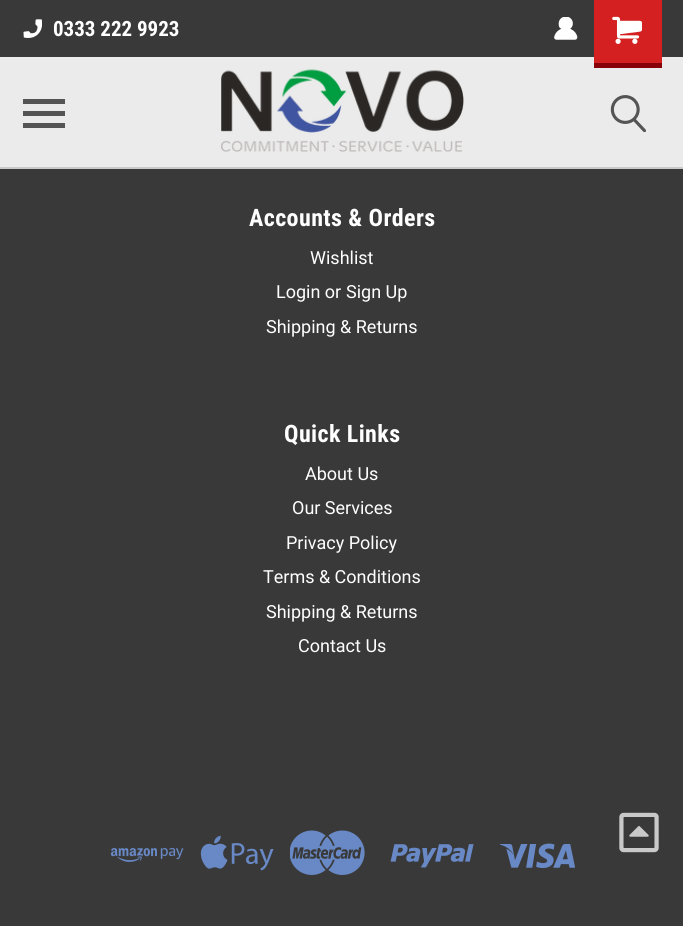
import math
import cairo


def write_spaced(ctx, x, y, s, letter, word):
	ctx.move_to(x, y)
	for ch in s:
		ctx.show_text(ch)
		ctx.rel_move_to(letter + word * (ch == ' '), 0)

def paste(ctx, path, x, y, w, h):
	ctx.save()
	ctx.set_source_surface(cairo.ImageSurface.create_from_png(path), x, y)
	ctx.rectangle(x, y, w, h)
	ctx.fill()
	ctx.restore()

def draw(ctx):
	ctx.set_source_rgb(0.224, 0.224, 0.224)
	ctx.paint()
	ctx.set_source_rgb(0.792, 0.788, 0.788)
	ctx.rectangle(0, 167, 683, 2)
	ctx.fill()
	paste(ctx, 'media/1.png', 23, 19, 19, 19)
	ctx.select_font_face('Roboto Condensed', cairo.FONT_SLANT_NORMAL, cairo.FONT_WEIGHT_BOLD)
	ctx.set_font_size(21)
	ctx.set_source_rgb(1, 1, 1)
	ctx.move_to(53, 36)
	ctx.show_text('0333 222 9923')
	paste(ctx, 'media/2.png', 554, 17, 24, 23)
	ctx.set_source_rgb(0.918, 0.918, 0.918)
	ctx.rectangle(0, 57, 683, 110)
	ctx.fill()
	ctx.set_source_rgb(0.831, 0.125, 0.125)
	ctx.rectangle(594, 0, 68, 63)
	ctx.fill()
	ctx.set_source_rgb(0.525, 0.004, 0.035)
	ctx.rectangle(594, 63, 68, 5)
	ctx.fill()
	paste(ctx, 'media/3.png', 612, 16, 30, 28)
	ctx.set_source_rgb(0.329, 0.329, 0.329)
	ctx.rectangle(23, 111, 42, 5)
	ctx.rectangle(23, 99, 42, 5)
	ctx.rectangle(23, 123, 42, 5)
	ctx.fill()
	paste(ctx, 'media/4.png', 221, 69, 243, 83)
	paste(ctx, 'media/5.png', 610, 95, 36, 37)
	ctx.set_font_size(24)
	ctx.set_source_rgb(1, 1, 1)
	write_spaced(ctx, 249, 226, 'Accounts & Orders', 0.4, 0)
	ctx.select_font_face('Roboto')
	ctx.set_font_size(18)
	for x, y, s in [
		(310, 264, 'Wishlist'),
		(276, 298, 'Login or'),
		(346, 298, 'Sign Up'),
		(266, 333, 'Shipping & Returns'),
	]:
		ctx.move_to(x, y)
		ctx.show_text(s)
	ctx.select_font_face('Roboto Condensed', cairo.FONT_SLANT_NORMAL, cairo.FONT_WEIGHT_BOLD)
	ctx.set_font_size(24)
	write_spaced(ctx, 284, 442, 'Quick Links', 0.4, 0)
	ctx.select_font_face('Roboto')
	ctx.set_font_size(18)
	for x, y, s in [
		(305, 480, 'About Us'),
		(292, 514, 'Our Services'),
		(286, 549, 'Privacy Policy'),
		(263, 583, 'Terms & Conditions'),
		(266, 618, 'Shipping & Returns'),
		(298, 652, 'Contact Us'),
	]:
		ctx.move_to(x, y)
		ctx.show_text(s)
	paste(ctx, 'media/6.png', 110, 848, 74, 14)
	paste(ctx, 'media/7.png', 200, 835, 74, 36)
	paste(ctx, 'media/8.png', 290, 830, 75, 45)
	paste(ctx, 'media/9.png', 390, 844, 84, 24)
	paste(ctx, 'media/10.png', 500, 843, 75, 25)
	paste(ctx, 'media/11.png', 619, 812, 40, 41)


surface = cairo.ImageSurface(cairo.FORMAT_RGB24, 683, 926)
ctx = cairo.Context(surface)
options = cairo.FontOptions()
options.set_hint_metrics(cairo.HINT_METRICS_OFF)
options.set_hint_style(cairo.HINT_STYLE_NONE)
ctx.set_font_options(options)
ctx.set_miter_limit(4)
draw(ctx)
surface.write_to_png('image.png')
